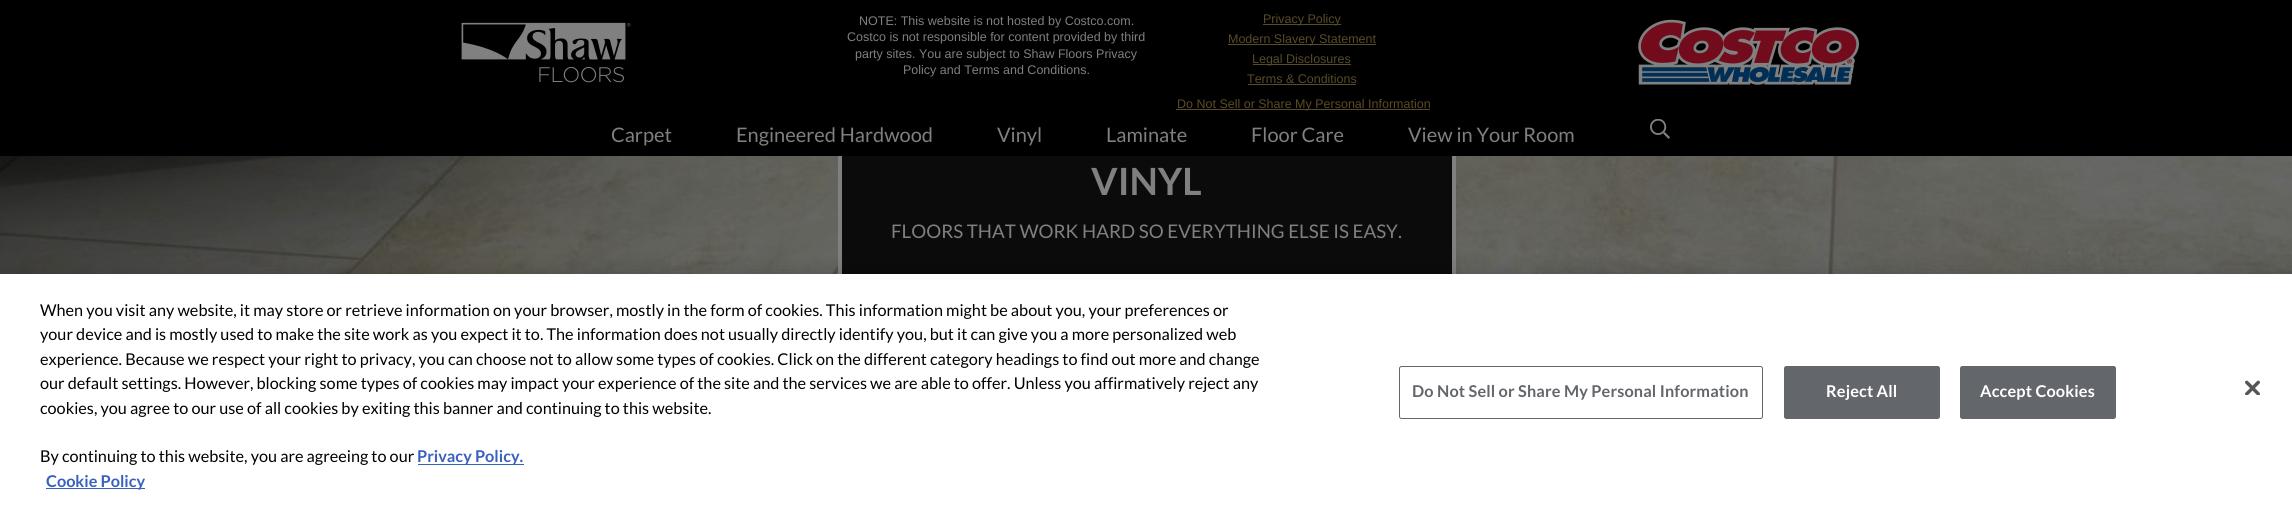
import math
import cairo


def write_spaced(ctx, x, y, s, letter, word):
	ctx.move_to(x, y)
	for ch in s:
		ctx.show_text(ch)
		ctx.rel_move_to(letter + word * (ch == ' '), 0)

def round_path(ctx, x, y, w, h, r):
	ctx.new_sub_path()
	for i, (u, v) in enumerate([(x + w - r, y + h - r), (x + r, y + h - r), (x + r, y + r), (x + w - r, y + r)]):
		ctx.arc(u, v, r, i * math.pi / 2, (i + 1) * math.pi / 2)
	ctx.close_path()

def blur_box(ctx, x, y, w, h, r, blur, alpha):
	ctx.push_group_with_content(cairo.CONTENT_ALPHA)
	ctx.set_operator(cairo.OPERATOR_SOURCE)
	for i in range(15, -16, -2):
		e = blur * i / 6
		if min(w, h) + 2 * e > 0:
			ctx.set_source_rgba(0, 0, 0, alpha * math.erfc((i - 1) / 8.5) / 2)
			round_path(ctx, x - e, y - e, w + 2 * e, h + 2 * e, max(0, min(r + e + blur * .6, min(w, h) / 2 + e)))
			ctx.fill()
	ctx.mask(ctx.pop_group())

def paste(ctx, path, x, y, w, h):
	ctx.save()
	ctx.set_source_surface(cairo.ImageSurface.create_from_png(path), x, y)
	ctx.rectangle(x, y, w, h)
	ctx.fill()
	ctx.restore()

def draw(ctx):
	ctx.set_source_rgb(1, 1, 1)
	ctx.paint()
	paste(ctx, 'media/4.png', 0, 156, 2292, 118)
	ctx.set_source_rgb(0.043, 0.043, 0.043)
	ctx.rectangle(842, 156, 610, 118)
	ctx.fill()
	ctx.rectangle(840, 81, 614, 235)
	ctx.set_source_rgb(0.502, 0.502, 0.502)
	ctx.set_line_width(4)
	ctx.stroke()
	ctx.set_source_rgb(0, 0, 0)
	ctx.rectangle(0, 0, 2292, 156)
	ctx.fill()
	paste(ctx, 'media/1.png', 461, 22, 170, 61)
	ctx.select_font_face('Liberation Sans')
	ctx.set_font_size(12.5)
	ctx.set_source_rgb(0.502, 0.502, 0.502)
	for x, y, s in [
		(859, 25, 'NOTE: This website is not hosted by Costco.com.'),
		(847, 41, 'Costco is not responsible for content provided by third'),
		(855, 58, 'party sites. You are subject to Shaw Floors Privacy'),
		(903, 74, 'Policy and Terms and Conditions.'),
	]:
		ctx.move_to(x, y)
		ctx.show_text(s)
	ctx.set_source_rgb(0.345, 0.294, 0.153)
	ctx.rectangle(1263, 24, 78, 1)
	ctx.fill()
	ctx.move_to(1263, 23)
	ctx.show_text('Privacy Policy')
	ctx.rectangle(1228, 44, 148, 1)
	ctx.fill()
	ctx.move_to(1228, 43)
	ctx.show_text('Modern Slavery Statement')
	ctx.rectangle(1253, 64, 98, 1)
	ctx.fill()
	ctx.move_to(1252, 63)
	ctx.show_text('Legal Disclosures')
	ctx.move_to(1247, 83)
	ctx.show_text('Terms & Conditions')
	ctx.rectangle(1248, 84, 108, 1)
	ctx.fill()
	ctx.rectangle(1176, 109, 254, 1)
	ctx.fill()
	ctx.move_to(1177, 108)
	ctx.show_text('Do Not Sell or Share My Personal Information')
	paste(ctx, 'media/2.png', 1638, 19, 221, 66)
	ctx.select_font_face('Lato')
	ctx.set_font_size(20)
	ctx.set_source_rgb(0.502, 0.502, 0.502)
	for x, y, s in [
		(611, 142, 'Carpet'),
		(736, 142, 'Engineered Hardwood'),
		(997, 142, 'Vinyl'),
		(1106, 142, 'Laminate'),
		(1251, 142, 'Floor Care'),
		(1408, 142, 'View in Your Room'),
	]:
		ctx.move_to(x, y)
		ctx.show_text(s)
	paste(ctx, 'media/3.png', 1650, 119, 20, 20)
	ctx.select_font_face('Lato', cairo.FONT_SLANT_NORMAL, cairo.FONT_WEIGHT_BOLD)
	ctx.set_font_size(37.5)
	ctx.move_to(1091, 195)
	ctx.show_text('VINYL')
	ctx.select_font_face('Lato')
	ctx.set_font_size(18.75)
	ctx.move_to(891, 238)
	ctx.show_text('FLOORS THAT WORK HARD SO EVERYTHING ELSE IS EASY.')
	ctx.set_source_rgb(0, 0, 0)
	blur_box(ctx, 0, 274, 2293, 232, 0, 11, 0.2)
	ctx.set_source_rgb(1, 1, 1)
	ctx.rectangle(0, 274, 2292, 232)
	ctx.fill()
	ctx.set_font_size(16.25)
	ctx.set_source_rgb(0, 0, 0)
	for x, y, s in [
		(40, 316, 'When you visit any website, it may store or retrieve information on your browser, mostly in the form of cookies. This information might be about you, your preferences or'),
		(40, 340, 'your device and is mostly used to make the site work as you expect it to. The information does not usually directly identify you, but it can give you a more personalized web'),
		(40, 365, 'experience. Because we respect your right to privacy, you can choose not to allow some types of cookies. Click on the different category headings to find out more and change'),
		(40, 389, 'our default settings. However, blocking some types of cookies may impact your experience of the site and the services we are able to offer. Unless you affirmatively reject any'),
		(40, 414, 'cookies, you agree to our use of all cookies by exiting this banner and continuing to this website.'),
		(40, 462, 'By continuing to this website, you are agreeing to our'),
	]:
		ctx.move_to(x, y)
		ctx.show_text(s)
	ctx.set_source_rgb(0.22, 0.376, 0.745)
	ctx.rectangle(418, 464, 106, 1)
	ctx.fill()
	ctx.select_font_face('Lato', cairo.FONT_SLANT_NORMAL, cairo.FONT_WEIGHT_BOLD)
	ctx.move_to(417, 462)
	ctx.show_text('Privacy Policy.')
	ctx.rectangle(46, 488, 99, 1)
	ctx.fill()
	ctx.move_to(46, 487)
	ctx.show_text('Cookie Policy')
	round_path(ctx, 1399.5, 366.5, 363, 52, 2)
	ctx.set_source_rgb(0.388, 0.4, 0.416)
	ctx.set_line_width(1)
	ctx.stroke()
	write_spaced(ctx, 1412, 397, 'Do Not Sell or Share My Personal Information', 0.15, 0)
	round_path(ctx, 1784.5, 366.5, 155, 52, 2)
	ctx.fill_preserve()
	ctx.stroke()
	ctx.set_source_rgb(1, 1, 1)
	write_spaced(ctx, 1826, 397, 'Reject All', 0.15, 0)
	ctx.set_source_rgb(0.388, 0.4, 0.416)
	round_path(ctx, 1960.5, 366.5, 155, 52, 2)
	ctx.fill_preserve()
	ctx.stroke()
	ctx.set_source_rgb(1, 1, 1)
	write_spaced(ctx, 1980, 397, 'Accept Cookies', 0.15, 0)
	paste(ctx, 'media/5.png', 2245, 380, 15, 15)


surface = cairo.ImageSurface(cairo.FORMAT_RGB24, 2292, 506)
ctx = cairo.Context(surface)
options = cairo.FontOptions()
options.set_hint_metrics(cairo.HINT_METRICS_OFF)
options.set_hint_style(cairo.HINT_STYLE_NONE)
ctx.set_font_options(options)
ctx.set_miter_limit(4)
draw(ctx)
surface.write_to_png('image.png')
